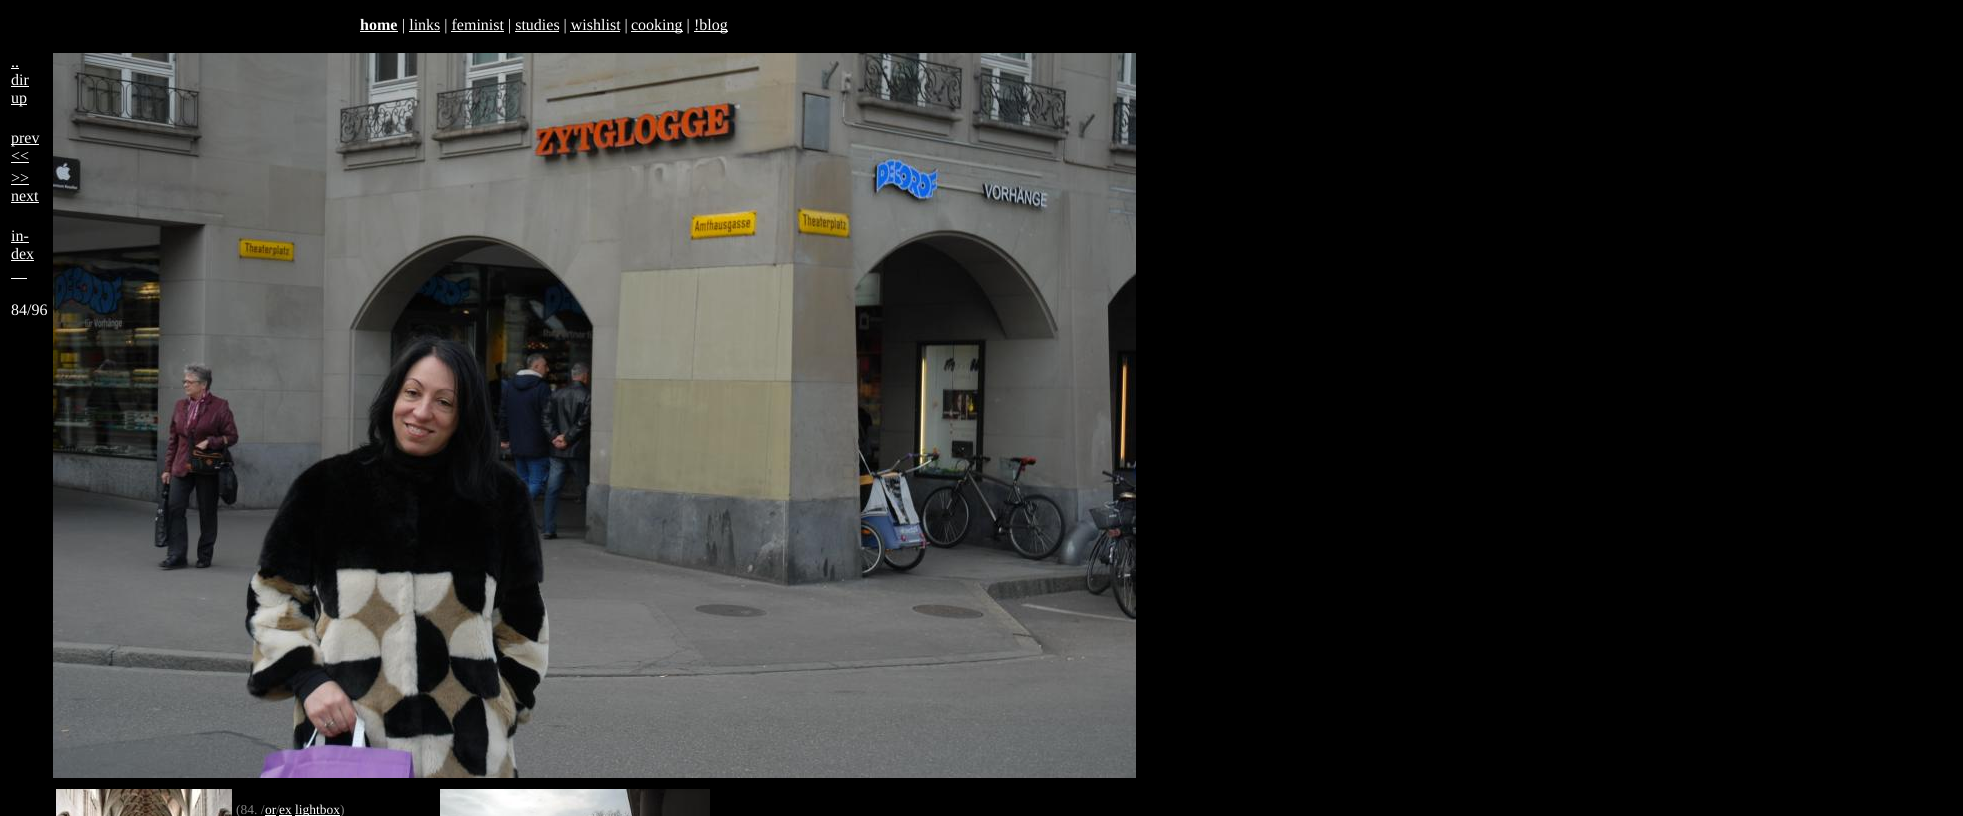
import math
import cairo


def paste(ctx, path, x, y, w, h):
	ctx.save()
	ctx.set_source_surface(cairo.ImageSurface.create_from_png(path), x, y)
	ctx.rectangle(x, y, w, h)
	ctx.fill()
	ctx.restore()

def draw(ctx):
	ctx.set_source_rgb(0, 0, 0)
	ctx.paint()
	ctx.select_font_face('Liberation Serif', cairo.FONT_SLANT_NORMAL, cairo.FONT_WEIGHT_BOLD)
	ctx.set_font_size(16)
	ctx.set_source_rgb(1, 1, 1)
	ctx.move_to(360, 30)
	ctx.show_text('home')
	ctx.rectangle(360, 31, 38, 1)
	ctx.fill()
	ctx.select_font_face('Liberation Serif')
	ctx.move_to(402, 30)
	ctx.show_text('| links | feminist | studies | wishlist |')
	ctx.rectangle(631, 31, 52, 1)
	ctx.fill()
	ctx.move_to(631, 30)
	ctx.show_text('cooking |')
	ctx.rectangle(694, 31, 34, 1)
	ctx.fill()
	ctx.move_to(694, 30)
	ctx.show_text('!blog')
	ctx.rectangle(409, 31, 31, 1)
	ctx.rectangle(451, 31, 53, 1)
	ctx.rectangle(515, 31, 44, 1)
	ctx.rectangle(570, 31, 50, 1)
	ctx.fill()
	ctx.move_to(11, 67)
	ctx.show_text('..')
	ctx.rectangle(11, 68, 8, 1)
	ctx.fill()
	ctx.move_to(11, 85)
	ctx.show_text('dir')
	ctx.rectangle(11, 86, 18, 1)
	ctx.fill()
	ctx.rectangle(11, 104, 16, 1)
	ctx.fill()
	ctx.move_to(11, 103)
	ctx.show_text('up')
	ctx.rectangle(11, 144, 28, 1)
	ctx.fill()
	ctx.move_to(11, 143)
	ctx.show_text('prev')
	ctx.move_to(11, 161)
	ctx.show_text('<<')
	ctx.rectangle(11, 162, 18, 1)
	ctx.fill()
	ctx.move_to(11, 183)
	ctx.show_text('>>')
	ctx.rectangle(11, 184, 18, 1)
	ctx.fill()
	ctx.move_to(11, 201)
	ctx.show_text('next')
	ctx.rectangle(11, 202, 28, 1)
	ctx.fill()
	ctx.move_to(11, 241)
	ctx.show_text('in-')
	ctx.rectangle(11, 242, 18, 1)
	ctx.fill()
	ctx.move_to(11, 259)
	ctx.show_text('dex')
	ctx.rectangle(11, 260, 23, 1)
	ctx.fill()
	ctx.rectangle(11, 278, 16, 1)
	ctx.fill()
	ctx.move_to(11, 315)
	ctx.show_text('84/96')
	paste(ctx, 'media/1.png', 53, 53, 1083, 725)
	paste(ctx, 'media/2.png', 56, 789, 176, 27)
	ctx.set_font_size(13.5)
	ctx.set_source_rgb(0.502, 0.502, 0.502)
	ctx.move_to(236, 814)
	ctx.show_text('(84. /')
	ctx.set_source_rgb(1, 1, 1)
	ctx.move_to(265, 814)
	ctx.show_text('or')
	ctx.rectangle(265, 815, 11, 1)
	ctx.fill()
	ctx.set_source_rgb(0.502, 0.502, 0.502)
	ctx.move_to(276, 814)
	ctx.show_text('/')
	ctx.set_source_rgb(1, 1, 1)
	ctx.move_to(279, 814)
	ctx.show_text('ex')
	ctx.rectangle(279, 815, 13, 1)
	ctx.fill()
	ctx.rectangle(295, 815, 45, 1)
	ctx.fill()
	ctx.move_to(295, 814)
	ctx.show_text('lightbox')
	ctx.set_source_rgb(0.502, 0.502, 0.502)
	ctx.move_to(340, 814)
	ctx.show_text(')')
	paste(ctx, 'media/3.png', 440, 789, 270, 27)


surface = cairo.ImageSurface(cairo.FORMAT_RGB24, 1963, 816)
ctx = cairo.Context(surface)
options = cairo.FontOptions()
options.set_hint_metrics(cairo.HINT_METRICS_OFF)
options.set_hint_style(cairo.HINT_STYLE_NONE)
ctx.set_font_options(options)
ctx.set_miter_limit(4)
draw(ctx)
surface.write_to_png('image.png')
